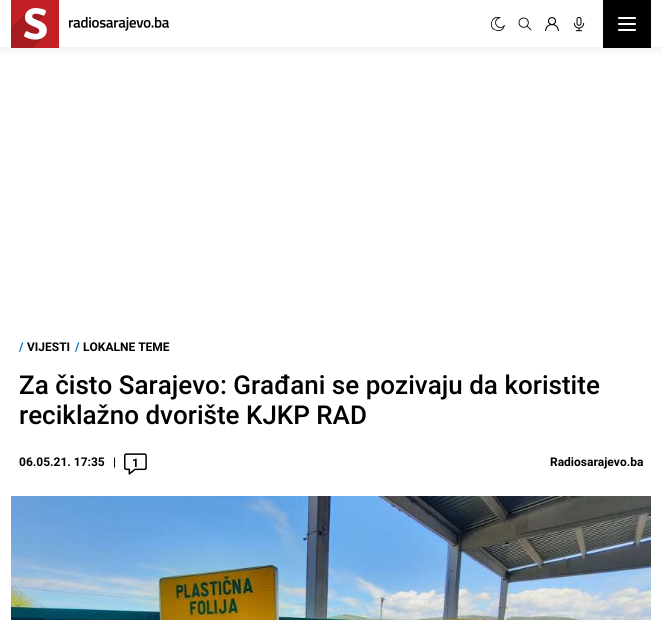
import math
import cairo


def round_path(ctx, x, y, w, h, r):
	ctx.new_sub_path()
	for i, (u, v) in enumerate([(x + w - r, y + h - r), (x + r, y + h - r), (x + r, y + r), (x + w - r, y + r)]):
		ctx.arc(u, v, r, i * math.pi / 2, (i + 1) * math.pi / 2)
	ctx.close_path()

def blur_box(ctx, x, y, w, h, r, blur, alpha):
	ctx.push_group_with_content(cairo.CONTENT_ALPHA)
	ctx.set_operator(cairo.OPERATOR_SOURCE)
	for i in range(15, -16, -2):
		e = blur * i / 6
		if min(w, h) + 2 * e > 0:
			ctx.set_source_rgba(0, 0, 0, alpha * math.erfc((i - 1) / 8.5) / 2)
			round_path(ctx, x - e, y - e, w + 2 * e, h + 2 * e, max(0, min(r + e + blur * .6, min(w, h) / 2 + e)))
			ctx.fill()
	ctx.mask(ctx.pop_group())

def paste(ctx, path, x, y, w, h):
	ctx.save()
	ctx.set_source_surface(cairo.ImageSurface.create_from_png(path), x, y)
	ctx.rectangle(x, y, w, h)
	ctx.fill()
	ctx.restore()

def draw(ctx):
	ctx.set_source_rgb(1, 1, 1)
	ctx.paint()
	ctx.save()
	ctx.rectangle(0, 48, 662, 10)
	ctx.clip()
	ctx.set_source_rgb(0.925, 0.929, 0.941)
	blur_box(ctx, 0, 2, 662, 48, 0, 4, 1)
	ctx.restore()
	ctx.set_source_rgb(0.953, 0.953, 0.961)
	ctx.rectangle(0, 47, 662, 1)
	ctx.fill()
	ctx.set_source_rgb(0.761, 0.125, 0.149)
	ctx.rectangle(11, 0, 48, 48)
	ctx.fill()
	paste(ctx, 'media/1.png', 11, 8, 36, 40)
	paste(ctx, 'media/2.png', 69, 17, 100, 14)
	paste(ctx, 'media/3.png', 490, 16, 15, 16)
	paste(ctx, 'media/4.png', 518, 17, 14, 14)
	paste(ctx, 'media/5.png', 545, 17, 14, 14)
	paste(ctx, 'media/6.png', 573, 16, 12, 16)
	ctx.set_source_rgb(0, 0, 0)
	ctx.rectangle(603, 0, 48, 48)
	ctx.fill()
	paste(ctx, 'media/7.png', 618, 17, 18, 14)
	ctx.select_font_face('Roboto', cairo.FONT_SLANT_NORMAL, cairo.FONT_WEIGHT_BOLD)
	ctx.set_font_size(12)
	ctx.set_source_rgb(0, 0.447, 0.733)
	ctx.move_to(19, 351)
	ctx.show_text('/')
	ctx.set_source_rgb(0, 0, 0)
	ctx.move_to(27, 351)
	ctx.show_text('VIJESTI')
	ctx.set_source_rgb(0, 0.447, 0.733)
	ctx.move_to(75, 351)
	ctx.show_text('/')
	ctx.set_source_rgb(0, 0, 0)
	ctx.move_to(83, 351)
	ctx.show_text('LOKALNE TEME')
	ctx.select_font_face('Roboto Medium')
	ctx.set_font_size(26)
	ctx.move_to(19, 394)
	ctx.show_text('Za čisto Sarajevo: Građani se pozivaju da koristite')
	ctx.move_to(19, 424)
	ctx.show_text('reciklažno dvorište KJKP RAD')
	ctx.select_font_face('Roboto', cairo.FONT_SLANT_NORMAL, cairo.FONT_WEIGHT_BOLD)
	ctx.set_font_size(12)
	for x, y, s in [
		(19, 466, '06.05.21. 17:35'),
		(113, 466, '|'),
		(132, 467, '1'),
	]:
		ctx.move_to(x, y)
		ctx.show_text(s)
	paste(ctx, 'media/8.png', 124, 453, 23, 22)
	ctx.move_to(550, 466)
	ctx.show_text('Radiosarajevo.ba')
	paste(ctx, 'media/9.png', 11, 496, 640, 124)


surface = cairo.ImageSurface(cairo.FORMAT_RGB24, 662, 620)
ctx = cairo.Context(surface)
options = cairo.FontOptions()
options.set_hint_metrics(cairo.HINT_METRICS_OFF)
options.set_hint_style(cairo.HINT_STYLE_NONE)
ctx.set_font_options(options)
ctx.set_miter_limit(4)
draw(ctx)
surface.write_to_png('image.png')
